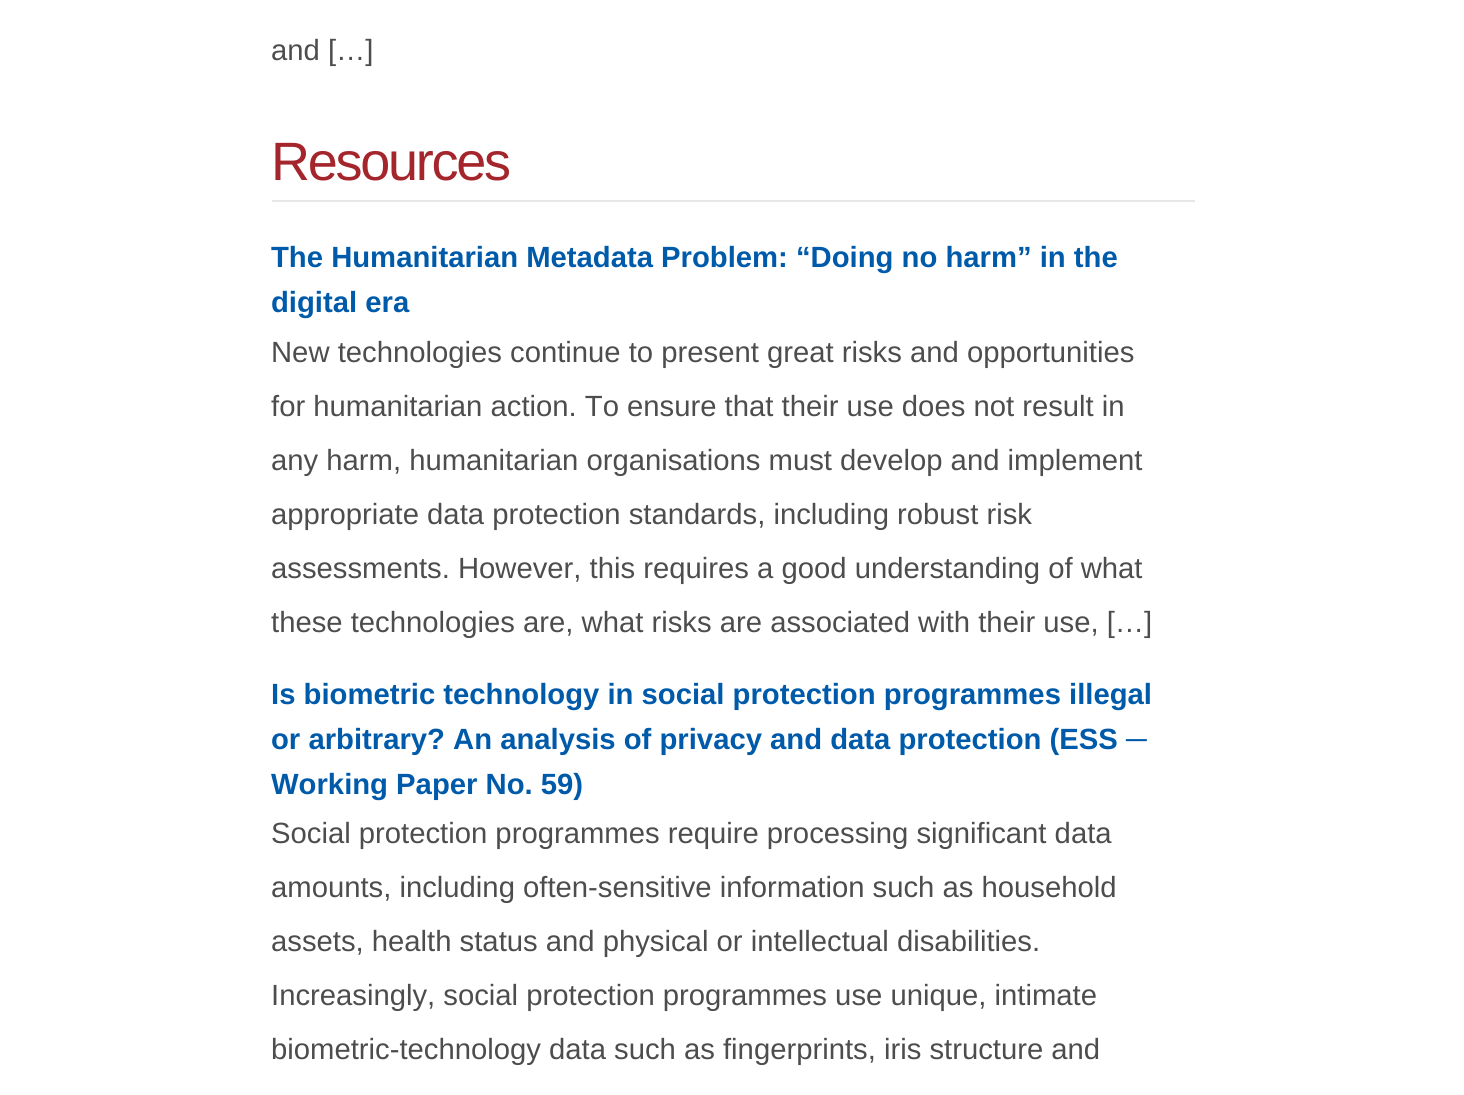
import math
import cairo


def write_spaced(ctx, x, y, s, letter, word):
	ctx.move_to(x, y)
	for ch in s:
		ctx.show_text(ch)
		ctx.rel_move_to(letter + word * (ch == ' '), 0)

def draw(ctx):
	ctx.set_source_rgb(1, 1, 1)
	ctx.paint()
	ctx.select_font_face('Liberation Sans')
	ctx.set_font_size(29.25)
	ctx.set_source_rgb(0.302, 0.302, 0.302)
	ctx.move_to(271, 60)
	ctx.show_text('and […]')
	ctx.set_source_rgb(0.906, 0.906, 0.906)
	ctx.rectangle(272, 200, 923, 2)
	ctx.fill()
	ctx.set_font_size(54)
	ctx.set_source_rgb(0.643, 0.149, 0.173)
	write_spaced(ctx, 271, 180, 'Resources', -2.25, 0)
	ctx.select_font_face('Liberation Sans', cairo.FONT_SLANT_NORMAL, cairo.FONT_WEIGHT_BOLD)
	ctx.set_font_size(29.25)
	ctx.set_source_rgb(0, 0.353, 0.667)
	ctx.move_to(271, 267)
	ctx.show_text('The Humanitarian Metadata Problem: “Doing no harm” in the')
	ctx.move_to(271, 312)
	ctx.show_text('digital era')
	ctx.select_font_face('Liberation Sans')
	ctx.set_source_rgb(0.302, 0.302, 0.302)
	for x, y, s in [
		(271, 362, 'New technologies continue to present great risks and opportunities'),
		(271, 416, 'for humanitarian action. To ensure that their use does not result in'),
		(271, 470, 'any harm, humanitarian organisations must develop and implement'),
		(271, 524, 'appropriate data protection standards, including robust risk'),
		(271, 578, 'assessments. However, this requires a good understanding of what'),
		(271, 632, 'these technologies are, what risks are associated with their use, […]'),
	]:
		ctx.move_to(x, y)
		ctx.show_text(s)
	ctx.select_font_face('Liberation Sans', cairo.FONT_SLANT_NORMAL, cairo.FONT_WEIGHT_BOLD)
	ctx.set_source_rgb(0, 0.353, 0.667)
	for x, y, s in [
		(271, 704, 'Is biometric technology in social protection programmes illegal'),
		(271, 749, 'or arbitrary? An analysis of privacy and data protection (ESS ─'),
		(271, 794, 'Working Paper No. 59)'),
	]:
		ctx.move_to(x, y)
		ctx.show_text(s)
	ctx.select_font_face('Liberation Sans')
	ctx.set_source_rgb(0.302, 0.302, 0.302)
	for x, y, s in [
		(271, 843, 'Social protection programmes require processing significant data'),
		(271, 897, 'amounts, including often-sensitive information such as household'),
		(271, 951, 'assets, health status and physical or intellectual disabilities.'),
		(271, 1005, 'Increasingly, social protection programmes use unique, intimate'),
		(271, 1059, 'biometric-technology data such as fingerprints, iris structure and'),
	]:
		ctx.move_to(x, y)
		ctx.show_text(s)


surface = cairo.ImageSurface(cairo.FORMAT_RGB24, 1464, 1095)
ctx = cairo.Context(surface)
options = cairo.FontOptions()
options.set_hint_metrics(cairo.HINT_METRICS_OFF)
options.set_hint_style(cairo.HINT_STYLE_NONE)
ctx.set_font_options(options)
ctx.set_miter_limit(4)
draw(ctx)
surface.write_to_png('image.png')
